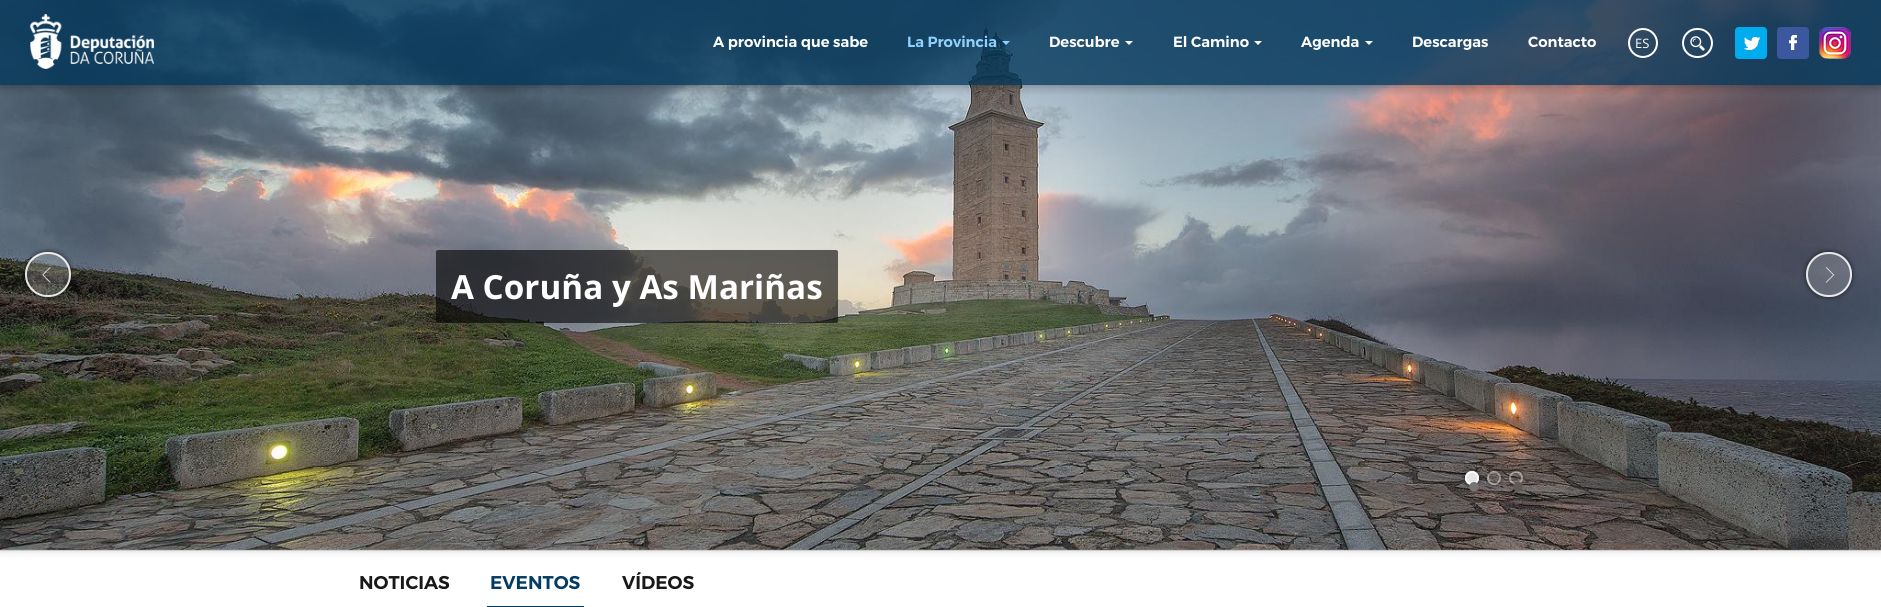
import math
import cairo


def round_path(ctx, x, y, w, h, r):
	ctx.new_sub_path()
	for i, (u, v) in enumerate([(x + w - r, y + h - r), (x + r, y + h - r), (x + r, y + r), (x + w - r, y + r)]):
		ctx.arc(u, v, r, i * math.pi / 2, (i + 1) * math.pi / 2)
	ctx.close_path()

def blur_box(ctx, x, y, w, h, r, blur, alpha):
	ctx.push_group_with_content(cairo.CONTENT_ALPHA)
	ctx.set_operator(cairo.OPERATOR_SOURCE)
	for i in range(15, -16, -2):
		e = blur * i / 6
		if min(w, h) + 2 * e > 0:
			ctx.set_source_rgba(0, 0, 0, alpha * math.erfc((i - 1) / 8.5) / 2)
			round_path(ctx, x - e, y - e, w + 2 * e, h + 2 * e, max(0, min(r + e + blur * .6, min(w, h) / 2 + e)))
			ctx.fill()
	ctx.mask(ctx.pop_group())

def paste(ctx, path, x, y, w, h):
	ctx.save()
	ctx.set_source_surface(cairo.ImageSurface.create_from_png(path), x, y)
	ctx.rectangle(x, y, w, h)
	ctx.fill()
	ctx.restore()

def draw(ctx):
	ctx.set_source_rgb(1, 1, 1)
	ctx.paint()
	ctx.set_source_rgb(0, 0, 0)
	blur_box(ctx, 0, 0, 1881, 551, 0, 4, 0.15)
	paste(ctx, 'media/7.png', 0, 0, 1881, 550)
	ctx.save()
	ctx.rectangle(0, 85, 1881, 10)
	ctx.clip()
	blur_box(ctx, 0, 0, 1881, 85, 0, 6, 0.4)
	ctx.restore()
	ctx.set_source_rgba(0.008, 0.212, 0.353, 0.78)
	ctx.rectangle(0, 0, 1881, 85)
	ctx.fill()
	paste(ctx, 'media/1.png', 30, 14, 124, 55)
	ctx.select_font_face('Montserrat SemiBold')
	ctx.set_font_size(14.75)
	ctx.set_source_rgb(1, 1, 1)
	ctx.move_to(713, 47)
	ctx.show_text('A provincia que sabe')
	ctx.set_source_rgb(0.569, 0.82, 0.992)
	ctx.move_to(907, 47)
	ctx.show_text('La Provincia')
	ctx.new_path()
	ctx.move_to(1002, 41)
	ctx.line_to(1010, 41)
	ctx.line_to(1006, 45)
	ctx.close_path()
	ctx.fill()
	ctx.set_source_rgb(1, 1, 1)
	ctx.move_to(1049, 47)
	ctx.show_text('Descubre')
	ctx.new_path()
	ctx.move_to(1125, 41)
	ctx.line_to(1133, 41)
	ctx.line_to(1129, 45)
	ctx.close_path()
	ctx.fill()
	ctx.move_to(1173, 47)
	ctx.show_text('El Camino')
	ctx.new_path()
	ctx.move_to(1254, 41)
	ctx.line_to(1262, 41)
	ctx.line_to(1258, 45)
	ctx.close_path()
	ctx.fill()
	ctx.move_to(1301, 47)
	ctx.show_text('Agenda')
	ctx.new_path()
	ctx.move_to(1365, 41)
	ctx.line_to(1373, 41)
	ctx.line_to(1369, 45)
	ctx.close_path()
	ctx.fill()
	ctx.move_to(1412, 47)
	ctx.show_text('Descargas')
	ctx.move_to(1528, 47)
	ctx.show_text('Contacto')
	ctx.new_path()
	ctx.arc(1643, 43, 14, 0, 2 * math.pi)
	ctx.stroke()
	ctx.select_font_face('Open Sans')
	ctx.set_font_size(13)
	ctx.move_to(1635, 48)
	ctx.show_text('ES')
	round_path(ctx, 1683, 29, 29, 28, 14)
	ctx.stroke()
	paste(ctx, 'media/2.png', 1690, 36, 15, 15)
	paste(ctx, 'media/3.png', 1735, 27, 32, 32)
	paste(ctx, 'media/4.png', 1777, 27, 32, 32)
	paste(ctx, 'media/5.png', 1819, 27, 32, 32)
	ctx.set_source_rgb(0.8, 0.8, 0.8)
	ctx.rectangle(0, 550, 1881, 1)
	ctx.fill()
	ctx.save()
	ctx.set_fill_rule(cairo.FILL_RULE_EVEN_ODD)
	ctx.new_path()
	ctx.move_to(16, 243)
	ctx.line_to(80, 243)
	ctx.line_to(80, 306)
	ctx.line_to(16, 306)
	ctx.close_path()
	ctx.move_to(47.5, 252)
	ctx.line_to(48.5, 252)
	ctx.curve_to(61, 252, 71, 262, 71, 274.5)
	ctx.curve_to(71, 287, 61, 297, 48.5, 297)
	ctx.line_to(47.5, 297)
	ctx.curve_to(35, 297, 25, 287, 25, 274.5)
	ctx.curve_to(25, 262, 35, 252, 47.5, 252)
	ctx.close_path()
	ctx.clip()
	ctx.set_source_rgb(0, 0, 0)
	blur_box(ctx, 25, 252, 46, 45, 22.5, 2.5, 0.68)
	ctx.restore()
	ctx.set_source_rgba(1, 1, 1, 0.17)
	round_path(ctx, 25, 252, 46, 45, 22.5)
	ctx.fill()
	round_path(ctx, 26, 253, 44, 43, 21.5)
	ctx.set_source_rgba(1, 1, 1, 0.85)
	ctx.stroke()
	paste(ctx, 'media/6.png', 42, 267, 9, 16)
	ctx.set_source_rgba(0, 0, 0, 0.6)
	round_path(ctx, 436, 250, 402, 73, 2)
	ctx.fill()
	ctx.select_font_face('Open Sans', cairo.FONT_SLANT_NORMAL, cairo.FONT_WEIGHT_BOLD)
	ctx.set_font_size(33.25)
	ctx.set_source_rgb(1, 1, 1)
	ctx.move_to(451, 299)
	ctx.show_text('A Coruña y As Mariñas')
	ctx.save()
	ctx.set_fill_rule(cairo.FILL_RULE_EVEN_ODD)
	ctx.new_path()
	ctx.move_to(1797, 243)
	ctx.line_to(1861, 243)
	ctx.line_to(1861, 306)
	ctx.line_to(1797, 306)
	ctx.close_path()
	ctx.move_to(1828.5, 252)
	ctx.line_to(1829.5, 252)
	ctx.curve_to(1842, 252, 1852, 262, 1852, 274.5)
	ctx.curve_to(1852, 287, 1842, 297, 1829.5, 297)
	ctx.line_to(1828.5, 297)
	ctx.curve_to(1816, 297, 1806, 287, 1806, 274.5)
	ctx.curve_to(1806, 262, 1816, 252, 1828.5, 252)
	ctx.close_path()
	ctx.clip()
	ctx.set_source_rgb(0, 0, 0)
	blur_box(ctx, 1806, 252, 46, 45, 22.5, 2.5, 0.68)
	ctx.restore()
	ctx.set_source_rgba(1, 1, 1, 0.17)
	round_path(ctx, 1806, 252, 46, 45, 22.5)
	ctx.fill()
	round_path(ctx, 1807, 253, 44, 43, 21.5)
	ctx.set_source_rgba(1, 1, 1, 0.85)
	ctx.stroke()
	paste(ctx, 'media/8.png', 1825, 267, 10, 16)
	ctx.save()
	ctx.set_fill_rule(cairo.FILL_RULE_EVEN_ODD)
	ctx.new_path()
	ctx.move_to(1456, 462)
	ctx.line_to(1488, 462)
	ctx.line_to(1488, 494)
	ctx.line_to(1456, 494)
	ctx.close_path()
	ctx.move_to(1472, 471)
	ctx.curve_to(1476, 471, 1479, 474, 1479, 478)
	ctx.curve_to(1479, 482, 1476, 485, 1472, 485)
	ctx.curve_to(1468, 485, 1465, 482, 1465, 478)
	ctx.curve_to(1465, 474, 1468, 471, 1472, 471)
	ctx.close_path()
	ctx.clip()
	ctx.set_source_rgb(0, 0, 0)
	blur_box(ctx, 1465, 471, 14, 14, 7, 2.5, 0.68)
	ctx.restore()
	ctx.arc(1472, 478, 7, 0, 2 * math.pi)
	ctx.fill()
	ctx.arc(1472, 478, 6, 0, 2 * math.pi)
	ctx.stroke()
	ctx.select_font_face('Liberation Serif')
	ctx.set_font_size(40)
	ctx.set_source_rgb(0.471, 0.455, 0.447)
	ctx.move_to(1467, 500)
	ctx.show_text('•')
	ctx.save()
	ctx.set_fill_rule(cairo.FILL_RULE_EVEN_ODD)
	ctx.new_path()
	ctx.move_to(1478, 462)
	ctx.line_to(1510, 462)
	ctx.line_to(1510, 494)
	ctx.line_to(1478, 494)
	ctx.close_path()
	ctx.move_to(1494, 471)
	ctx.curve_to(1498, 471, 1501, 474, 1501, 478)
	ctx.curve_to(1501, 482, 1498, 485, 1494, 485)
	ctx.curve_to(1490, 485, 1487, 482, 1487, 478)
	ctx.curve_to(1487, 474, 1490, 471, 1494, 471)
	ctx.close_path()
	ctx.clip()
	ctx.set_source_rgb(0, 0, 0)
	blur_box(ctx, 1487, 471, 14, 14, 7, 2.5, 0.32)
	ctx.restore()
	ctx.arc(1494, 478, 6, 0, 2 * math.pi)
	ctx.set_source_rgba(1, 1, 1, 0.4)
	ctx.stroke()
	ctx.save()
	ctx.set_fill_rule(cairo.FILL_RULE_EVEN_ODD)
	ctx.new_path()
	ctx.move_to(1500, 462)
	ctx.line_to(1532, 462)
	ctx.line_to(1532, 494)
	ctx.line_to(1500, 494)
	ctx.close_path()
	ctx.move_to(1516, 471)
	ctx.curve_to(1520, 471, 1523, 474, 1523, 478)
	ctx.curve_to(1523, 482, 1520, 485, 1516, 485)
	ctx.curve_to(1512, 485, 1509, 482, 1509, 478)
	ctx.curve_to(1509, 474, 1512, 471, 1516, 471)
	ctx.close_path()
	ctx.clip()
	ctx.set_source_rgb(0, 0, 0)
	blur_box(ctx, 1509, 471, 14, 14, 7, 2.5, 0.32)
	ctx.restore()
	ctx.arc(1516, 478, 6, 0, 2 * math.pi)
	ctx.stroke()
	ctx.set_source_rgb(0.376, 0.349, 0.337)
	ctx.move_to(1511, 500)
	ctx.show_text('•')
	ctx.select_font_face('Montserrat SemiBold')
	ctx.set_font_size(18.5)
	ctx.set_source_rgb(0.094, 0.094, 0.094)
	ctx.move_to(359, 589)
	ctx.show_text('NOTICIAS')
	ctx.set_source_rgb(0.008, 0.231, 0.4)
	ctx.rectangle(487, 606, 97, 1)
	ctx.fill()
	ctx.move_to(490, 589)
	ctx.show_text('EVENTOS')
	ctx.set_source_rgb(0.094, 0.094, 0.094)
	ctx.move_to(622, 589)
	ctx.show_text('VÍDEOS')


surface = cairo.ImageSurface(cairo.FORMAT_RGB24, 1881, 607)
ctx = cairo.Context(surface)
options = cairo.FontOptions()
options.set_hint_metrics(cairo.HINT_METRICS_OFF)
options.set_hint_style(cairo.HINT_STYLE_NONE)
ctx.set_font_options(options)
ctx.set_miter_limit(4)
draw(ctx)
surface.write_to_png('image.png')
